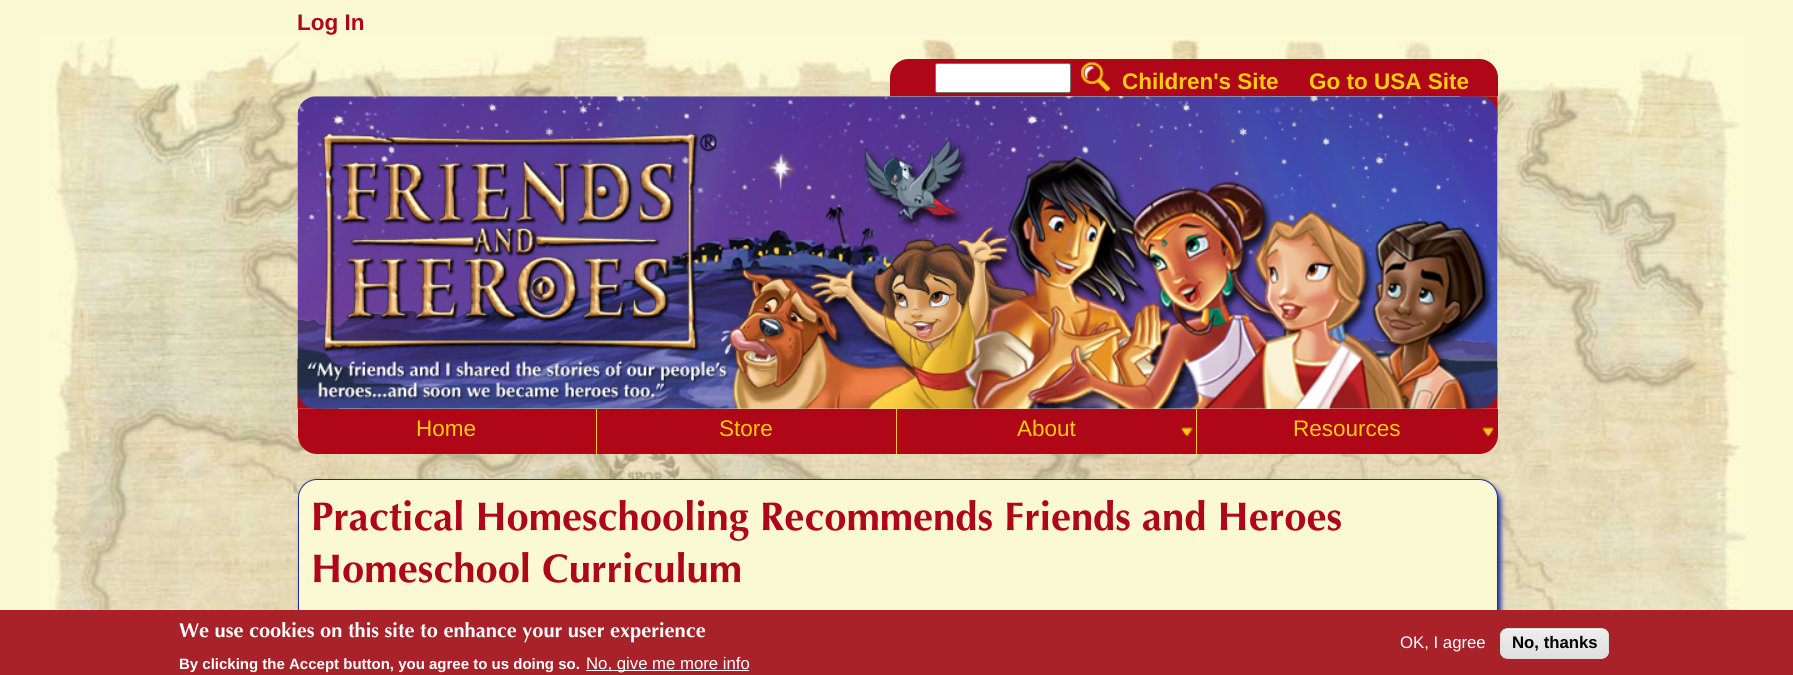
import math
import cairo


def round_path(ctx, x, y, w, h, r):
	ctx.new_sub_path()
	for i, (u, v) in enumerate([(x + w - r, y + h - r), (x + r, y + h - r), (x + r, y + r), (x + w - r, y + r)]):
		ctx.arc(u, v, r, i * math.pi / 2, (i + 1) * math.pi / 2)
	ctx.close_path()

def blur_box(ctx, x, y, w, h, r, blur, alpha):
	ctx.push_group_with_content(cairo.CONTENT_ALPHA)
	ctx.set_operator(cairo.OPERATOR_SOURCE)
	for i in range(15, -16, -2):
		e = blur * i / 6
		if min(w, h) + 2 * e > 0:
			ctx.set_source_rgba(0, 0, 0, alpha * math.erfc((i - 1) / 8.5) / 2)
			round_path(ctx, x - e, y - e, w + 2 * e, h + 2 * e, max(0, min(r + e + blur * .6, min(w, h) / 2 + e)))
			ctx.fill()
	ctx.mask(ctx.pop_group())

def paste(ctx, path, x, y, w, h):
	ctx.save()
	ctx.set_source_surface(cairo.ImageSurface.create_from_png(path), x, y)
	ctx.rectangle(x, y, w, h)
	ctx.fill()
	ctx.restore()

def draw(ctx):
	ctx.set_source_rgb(0.984, 0.976, 0.827)
	ctx.paint()
	paste(ctx, 'media/1.png', 41, 35, 1706, 575)
	ctx.select_font_face('Liberation Sans', cairo.FONT_SLANT_NORMAL, cairo.FONT_WEIGHT_BOLD)
	ctx.set_font_size(22.5)
	ctx.set_source_rgb(0.686, 0.031, 0.09)
	ctx.move_to(297, 30)
	ctx.show_text('Log In')
	ctx.new_path()
	ctx.move_to(908.5, 59)
	ctx.line_to(1479.5, 59)
	ctx.curve_to(1489.5, 59, 1498, 67.5, 1498, 77.5)
	ctx.line_to(1498, 96)
	ctx.line_to(890, 96)
	ctx.line_to(890, 77.5)
	ctx.curve_to(890, 67.5, 898.5, 59, 908.5, 59)
	ctx.close_path()
	ctx.fill()
	ctx.set_source_rgb(1, 1, 1)
	round_path(ctx, 935.5, 63.5, 135, 29, 2)
	ctx.fill_preserve()
	ctx.set_source_rgb(0.463, 0.463, 0.463)
	ctx.set_line_width(1)
	ctx.stroke()
	paste(ctx, 'media/2.png', 1081, 62, 29, 30)
	ctx.set_source_rgb(0.992, 0.8, 0.067)
	ctx.move_to(1122, 89)
	ctx.show_text('Children\'s Site')
	ctx.move_to(1309, 89)
	ctx.show_text('Go to USA Site')
	paste(ctx, 'media/3.png', 297, 96, 1201, 313)
	paste(ctx, 'media/4.png', 297, 96, 1201, 313)
	ctx.set_source_rgb(0.686, 0.031, 0.09)
	ctx.new_path()
	ctx.move_to(298, 409)
	ctx.line_to(598, 409)
	ctx.line_to(598, 454)
	ctx.line_to(317, 454)
	ctx.curve_to(306.5, 454, 298, 445.5, 298, 435)
	ctx.close_path()
	ctx.fill()
	ctx.set_source_rgb(0.992, 0.8, 0.067)
	ctx.rectangle(596, 409, 1, 45)
	ctx.fill()
	ctx.select_font_face('Liberation Sans')
	ctx.move_to(416, 436)
	ctx.show_text('Home')
	ctx.set_source_rgb(0.686, 0.031, 0.09)
	ctx.rectangle(598, 409, 600, 45)
	ctx.fill()
	ctx.set_source_rgb(0.992, 0.8, 0.067)
	ctx.rectangle(896, 409, 1, 45)
	ctx.fill()
	ctx.move_to(719, 436)
	ctx.show_text('Store')
	paste(ctx, 'media/5.png', 1181, 427, 12, 10)
	ctx.rectangle(1196, 409, 1, 45)
	ctx.fill()
	ctx.move_to(1017, 436)
	ctx.show_text('About')
	ctx.set_source_rgb(0.686, 0.031, 0.09)
	ctx.new_path()
	ctx.move_to(1198, 409)
	ctx.line_to(1498, 409)
	ctx.line_to(1498, 435)
	ctx.curve_to(1498, 445.5, 1489.5, 454, 1479, 454)
	ctx.line_to(1198, 454)
	ctx.close_path()
	ctx.fill()
	paste(ctx, 'media/6.png', 1482, 427, 16, 23)
	ctx.set_source_rgb(0.992, 0.8, 0.067)
	ctx.move_to(1293, 436)
	ctx.show_text('Resources')
	ctx.set_source_rgb(0.11, 0.173, 0.62)
	blur_box(ctx, 301, 483, 1200, 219, 19, 2.5, 1)
	ctx.set_source_rgb(0.984, 0.976, 0.827)
	round_path(ctx, 298.5, 479.5, 1199, 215, 18.5)
	ctx.fill_preserve()
	ctx.set_source_rgb(0.11, 0.173, 0.62)
	ctx.stroke()
	ctx.select_font_face('Optima', cairo.FONT_SLANT_NORMAL, cairo.FONT_WEIGHT_BOLD)
	ctx.set_font_size(40)
	ctx.set_source_rgb(0.686, 0.031, 0.09)
	ctx.move_to(311, 530)
	ctx.show_text('Practical Homeschooling Recommends Friends and Heroes')
	ctx.move_to(311, 582)
	ctx.show_text('Homeschool Curriculum')
	ctx.set_source_rgb(0.663, 0.133, 0.165)
	ctx.rectangle(0, 610, 1793, 65)
	ctx.fill()
	ctx.set_font_size(20)
	ctx.set_source_rgb(1, 1, 1)
	ctx.move_to(179, 637)
	ctx.show_text('We use cookies on this site to enhance your user experience')
	ctx.select_font_face('Liberation Sans', cairo.FONT_SLANT_NORMAL, cairo.FONT_WEIGHT_BOLD)
	ctx.set_font_size(15)
	ctx.move_to(179, 669)
	ctx.show_text('By clicking the Accept button, you agree to us doing so.')
	ctx.rectangle(586, 670, 163, 1)
	ctx.fill()
	ctx.select_font_face('Liberation Sans')
	ctx.set_font_size(16.75)
	ctx.move_to(586, 669)
	ctx.show_text('No, give me more info')
	ctx.move_to(1400, 648)
	ctx.show_text('OK, I agree')
	ctx.save()
	round_path(ctx, 1500, 628, 109, 31, 8)
	ctx.clip()
	gradient = cairo.LinearGradient(1554, 629, 1554, 658)
	gradient.add_color_stop_rgba(0.05, 0.929, 0.929, 0.929, 1)
	gradient.add_color_stop_rgba(1, 0.875, 0.875, 0.875, 1)
	ctx.set_source(gradient)
	ctx.rectangle(1500, 629, 109, 29)
	ctx.fill()
	ctx.restore()
	ctx.new_path()
	ctx.move_to(1508, 630)
	ctx.line_to(1601, 630)
	ctx.curve_to(1605, 630, 1608, 633, 1608, 636)
	ctx.curve_to(1608, 625, 1592, 629, 1586, 629)
	ctx.line_to(1523, 629)
	ctx.curve_to(1517, 629, 1501, 625, 1501, 636)
	ctx.curve_to(1501, 633, 1504, 630, 1508, 630)
	ctx.close_path()
	ctx.fill()
	round_path(ctx, 1500.5, 628.5, 108, 30, 7.5)
	ctx.set_source_rgb(0.863, 0.863, 0.863)
	ctx.stroke()
	ctx.select_font_face('Liberation Sans', cairo.FONT_SLANT_NORMAL, cairo.FONT_WEIGHT_BOLD)
	ctx.set_source_rgb(0, 0, 0)
	ctx.move_to(1512, 648)
	ctx.show_text('No, thanks')


surface = cairo.ImageSurface(cairo.FORMAT_RGB24, 1793, 675)
ctx = cairo.Context(surface)
options = cairo.FontOptions()
options.set_hint_metrics(cairo.HINT_METRICS_OFF)
options.set_hint_style(cairo.HINT_STYLE_NONE)
ctx.set_font_options(options)
ctx.set_miter_limit(4)
draw(ctx)
surface.write_to_png('image.png')
